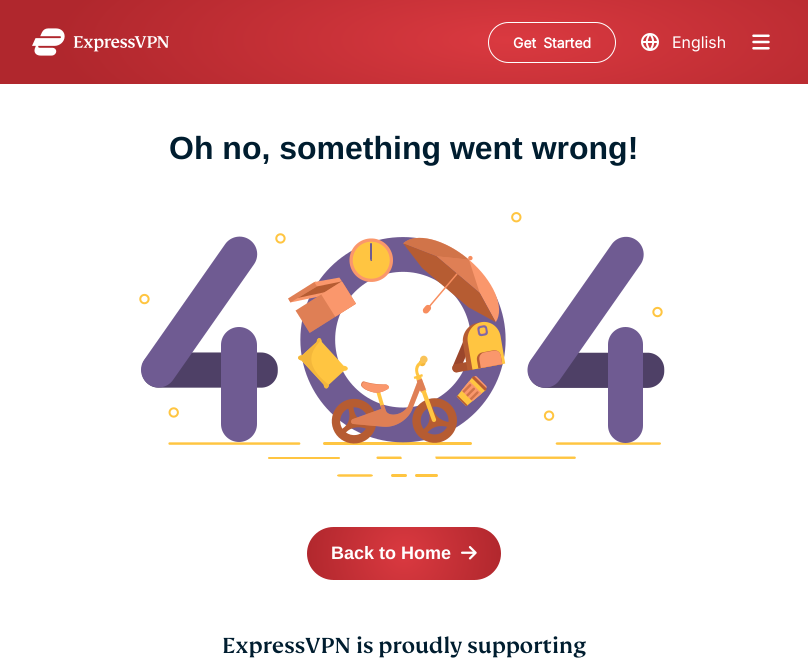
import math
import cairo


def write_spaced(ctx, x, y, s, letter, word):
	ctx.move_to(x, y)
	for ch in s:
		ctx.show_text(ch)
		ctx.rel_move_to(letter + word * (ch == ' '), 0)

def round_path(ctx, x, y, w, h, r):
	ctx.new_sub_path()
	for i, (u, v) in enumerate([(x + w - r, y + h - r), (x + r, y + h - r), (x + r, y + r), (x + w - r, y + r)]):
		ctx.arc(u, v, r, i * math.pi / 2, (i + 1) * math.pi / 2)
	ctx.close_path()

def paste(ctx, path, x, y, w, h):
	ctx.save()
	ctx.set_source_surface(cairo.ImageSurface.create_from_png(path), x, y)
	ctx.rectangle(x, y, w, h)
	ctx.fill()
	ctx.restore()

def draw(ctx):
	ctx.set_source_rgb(1, 1, 1)
	ctx.paint()
	gradient = cairo.RadialGradient(0, 0, 0, 0, 0, 1)
	gradient.set_matrix(cairo.Matrix(1 / 453, 0, 0, 1 / 124, -1 * 508 / 453, -1 * 40 / 124))
	gradient.add_color_stop_rgba(0, 0.855, 0.224, 0.251, 1)
	gradient.add_color_stop_rgba(1, 0.69, 0.153, 0.176, 1)
	ctx.set_source(gradient)
	ctx.rectangle(0, 0, 808, 84)
	ctx.fill()
	paste(ctx, 'media/1.png', 32, 28, 137, 28)
	round_path(ctx, 488.5, 22.5, 127, 40, 20)
	ctx.set_source_rgb(1, 1, 1)
	ctx.set_line_width(1)
	ctx.stroke()
	ctx.select_font_face('Inter', cairo.FONT_SLANT_NORMAL, cairo.FONT_WEIGHT_BOLD)
	ctx.set_font_size(14)
	write_spaced(ctx, 513, 48, 'Get Started', 0, 3)
	paste(ctx, 'media/2.png', 641, 33, 18, 18)
	ctx.select_font_face('Inter')
	ctx.set_font_size(16)
	ctx.move_to(672, 48)
	ctx.show_text('English')
	paste(ctx, 'media/3.png', 752, 34, 18, 16)
	ctx.select_font_face('Liberation Sans', cairo.FONT_SLANT_NORMAL, cairo.FONT_WEIGHT_BOLD)
	ctx.set_font_size(32)
	ctx.set_source_rgb(0, 0.114, 0.184)
	ctx.move_to(169, 159)
	ctx.show_text('Oh no, something went wrong!')
	paste(ctx, 'media/4.png', 139, 212, 526, 265)
	gradient = cairo.RadialGradient(404, 554, 0, 404, 554, 101)
	gradient.add_color_stop_rgba(0, 0.855, 0.224, 0.251, 1)
	gradient.add_color_stop_rgba(1, 0.69, 0.153, 0.176, 1)
	ctx.set_source(gradient)
	round_path(ctx, 307, 527, 194, 53, 26.5)
	ctx.fill()
	ctx.set_font_size(18)
	ctx.set_source_rgb(1, 1, 1)
	ctx.move_to(331, 559)
	ctx.show_text('Back to Home')
	paste(ctx, 'media/5.png', 461, 546, 16, 14)
	ctx.select_font_face('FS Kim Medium')
	ctx.set_font_size(24)
	ctx.set_source_rgb(0, 0.114, 0.184)
	ctx.move_to(222, 653)
	ctx.show_text('ExpressVPN is proudly supporting')


surface = cairo.ImageSurface(cairo.FORMAT_RGB24, 808, 664)
ctx = cairo.Context(surface)
options = cairo.FontOptions()
options.set_hint_metrics(cairo.HINT_METRICS_OFF)
options.set_hint_style(cairo.HINT_STYLE_NONE)
ctx.set_font_options(options)
ctx.set_miter_limit(4)
draw(ctx)
surface.write_to_png('image.png')
